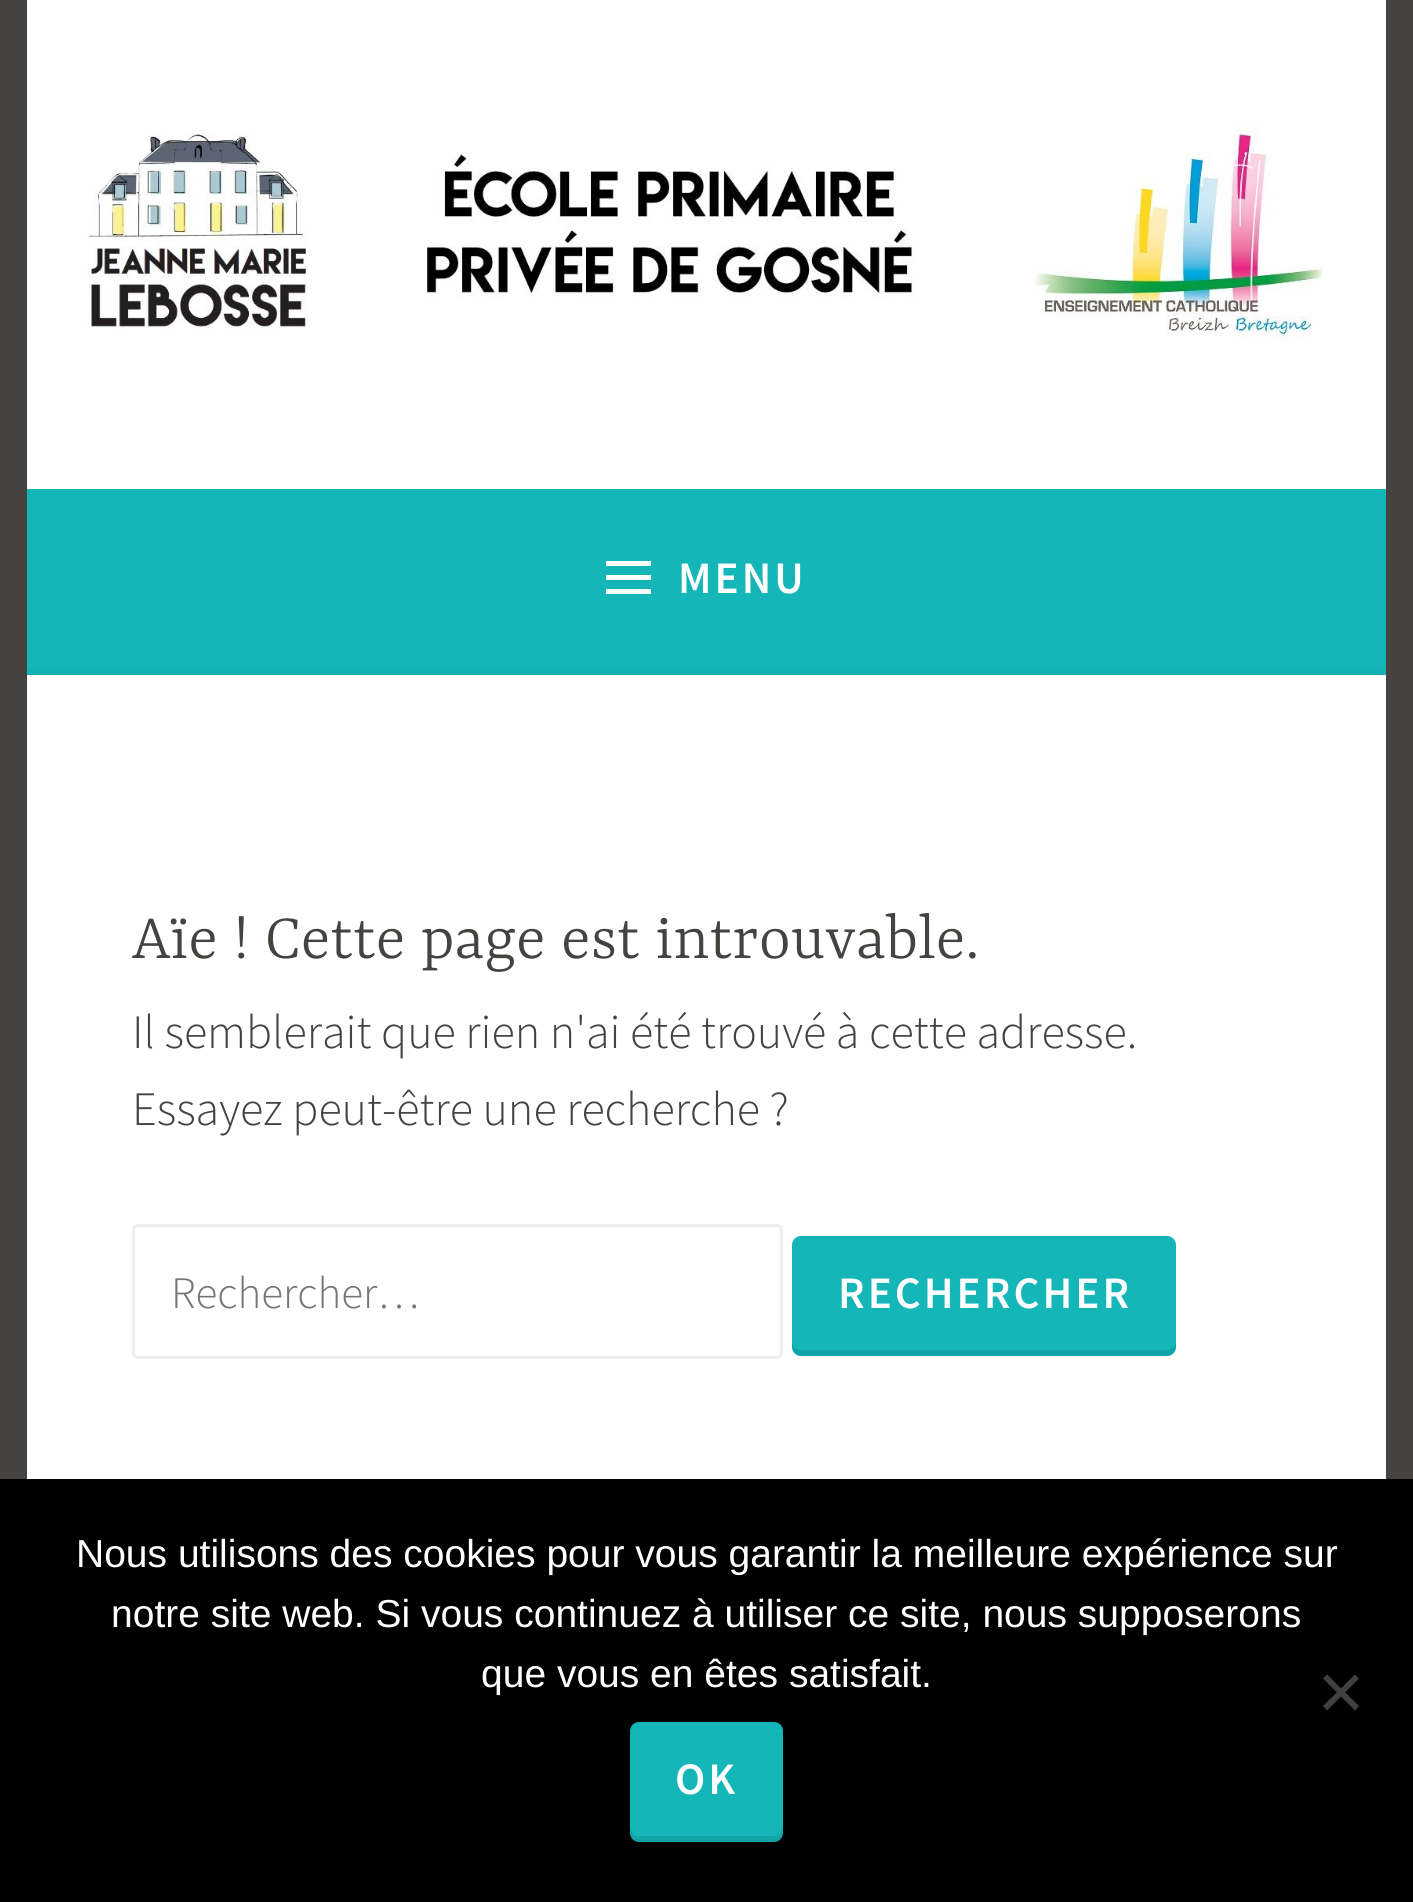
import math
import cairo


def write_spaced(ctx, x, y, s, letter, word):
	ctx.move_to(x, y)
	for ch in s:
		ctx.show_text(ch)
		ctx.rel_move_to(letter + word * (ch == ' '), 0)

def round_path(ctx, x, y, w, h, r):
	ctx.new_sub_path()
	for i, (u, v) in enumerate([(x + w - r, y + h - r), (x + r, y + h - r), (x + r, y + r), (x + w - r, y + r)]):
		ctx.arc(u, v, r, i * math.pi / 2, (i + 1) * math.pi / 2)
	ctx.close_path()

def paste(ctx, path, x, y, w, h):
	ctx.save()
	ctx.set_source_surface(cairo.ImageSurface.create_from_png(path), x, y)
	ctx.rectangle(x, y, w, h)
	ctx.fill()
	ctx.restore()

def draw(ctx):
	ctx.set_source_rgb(0.267, 0.263, 0.251)
	ctx.paint()
	ctx.set_source_rgb(1, 1, 1)
	ctx.rectangle(27, 0, 1359, 489)
	ctx.fill()
	paste(ctx, 'media/1.png', 81, 126, 1242, 216)
	ctx.set_source_rgb(0.082, 0.714, 0.722)
	ctx.rectangle(27, 489, 1359, 180)
	ctx.fill()
	ctx.set_source_rgb(0.078, 0.694, 0.698)
	ctx.rectangle(27, 669, 1359, 6)
	ctx.fill()
	ctx.set_source_rgb(1, 1, 1)
	ctx.new_path()
	ctx.move_to(606, 594)
	ctx.line_to(606, 589)
	ctx.line_to(651, 589)
	ctx.line_to(651, 594)
	ctx.close_path()
	ctx.move_to(606, 561)
	ctx.line_to(651, 561)
	ctx.line_to(651, 566)
	ctx.line_to(606, 566)
	ctx.close_path()
	ctx.move_to(606, 580)
	ctx.line_to(606, 575)
	ctx.line_to(651, 575)
	ctx.line_to(651, 580)
	ctx.close_path()
	ctx.fill()
	ctx.select_font_face('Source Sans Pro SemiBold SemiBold')
	ctx.set_font_size(45)
	write_spaced(ctx, 678, 593, 'MENU', 3, 0)
	ctx.rectangle(27, 675, 1359, 804)
	ctx.fill()
	ctx.select_font_face('Yrsa Light')
	ctx.set_font_size(69)
	ctx.set_source_rgb(0.267, 0.263, 0.251)
	ctx.move_to(132, 958)
	ctx.show_text('Aïe ! Cette page est introuvable.')
	ctx.select_font_face('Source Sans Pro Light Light')
	ctx.set_font_size(48)
	ctx.move_to(132, 1048)
	ctx.show_text('Il semblerait que rien n\'ai été trouvé à cette adresse.')
	ctx.move_to(132, 1125)
	ctx.show_text('Essayez peut-être une recherche ?')
	round_path(ctx, 133.5, 1225.5, 648, 132, 4.5)
	ctx.set_source_rgb(0.933, 0.933, 0.933)
	ctx.set_line_width(3)
	ctx.stroke()
	ctx.set_font_size(45)
	ctx.set_source_rgb(0.459, 0.459, 0.459)
	ctx.move_to(171, 1308)
	ctx.show_text('Rechercher…')
	ctx.set_source_rgb(0.082, 0.714, 0.722)
	round_path(ctx, 792, 1236, 384, 120, 9)
	ctx.fill()
	ctx.set_source_rgba(0, 0, 0, 0.1)
	ctx.new_path()
	ctx.move_to(792, 1341)
	ctx.line_to(792, 1347)
	ctx.curve_to(792, 1352, 796, 1356, 801, 1356)
	ctx.line_to(1167, 1356)
	ctx.curve_to(1172, 1356, 1176, 1352, 1176, 1347)
	ctx.line_to(1176, 1341)
	ctx.curve_to(1176, 1346, 1172, 1350, 1167, 1350)
	ctx.line_to(801, 1350)
	ctx.curve_to(796, 1350, 792, 1346, 792, 1341)
	ctx.close_path()
	ctx.fill()
	ctx.select_font_face('Source Sans Pro SemiBold SemiBold')
	ctx.set_source_rgb(1, 1, 1)
	write_spaced(ctx, 838, 1308, 'RECHERCHER', 3, 0)
	ctx.set_source_rgb(0, 0, 0)
	ctx.rectangle(0, 1479, 1413, 423)
	ctx.fill()
	ctx.select_font_face('Liberation Sans')
	ctx.set_font_size(39)
	ctx.set_source_rgb(1, 1, 1)
	for x, y, s in [
		(76, 1567, 'Nous utilisons des cookies pour vous garantir la meilleure expérience sur'),
		(111, 1627, 'notre site web. Si vous continuez à utiliser ce site, nous supposerons'),
		(481, 1687, 'que vous en êtes satisfait.'),
	]:
		ctx.move_to(x, y)
		ctx.show_text(s)
	ctx.set_source_rgb(0.251, 0.251, 0.251)
	ctx.new_path()
	ctx.move_to(1355, 1674.5)
	ctx.line_to(1359, 1678.5)
	ctx.line_to(1327, 1710.5)
	ctx.line_to(1323, 1706)
	ctx.close_path()
	ctx.fill()
	ctx.new_path()
	ctx.move_to(1323, 1678.5)
	ctx.line_to(1327, 1674.5)
	ctx.line_to(1359, 1706)
	ctx.line_to(1355, 1710.5)
	ctx.close_path()
	ctx.fill()
	ctx.set_source_rgb(0.082, 0.714, 0.722)
	round_path(ctx, 630, 1722, 153, 120, 9)
	ctx.fill()
	ctx.set_source_rgba(0, 0, 0, 0.1)
	ctx.new_path()
	ctx.move_to(630, 1827)
	ctx.line_to(630, 1833)
	ctx.curve_to(630, 1838, 634, 1842, 639, 1842)
	ctx.line_to(774, 1842)
	ctx.curve_to(779, 1842, 783, 1838, 783, 1833)
	ctx.line_to(783, 1827)
	ctx.curve_to(783, 1832, 779, 1836, 774, 1836)
	ctx.line_to(639, 1836)
	ctx.curve_to(634, 1836, 630, 1832, 630, 1827)
	ctx.close_path()
	ctx.fill()
	ctx.select_font_face('Source Sans Pro SemiBold SemiBold')
	ctx.set_font_size(45)
	ctx.set_source_rgb(1, 1, 1)
	write_spaced(ctx, 675, 1794, 'OK', 3, 0)


surface = cairo.ImageSurface(cairo.FORMAT_RGB24, 1413, 1902)
ctx = cairo.Context(surface)
options = cairo.FontOptions()
options.set_hint_metrics(cairo.HINT_METRICS_OFF)
options.set_hint_style(cairo.HINT_STYLE_NONE)
ctx.set_font_options(options)
ctx.set_miter_limit(4)
draw(ctx)
surface.write_to_png('image.png')
